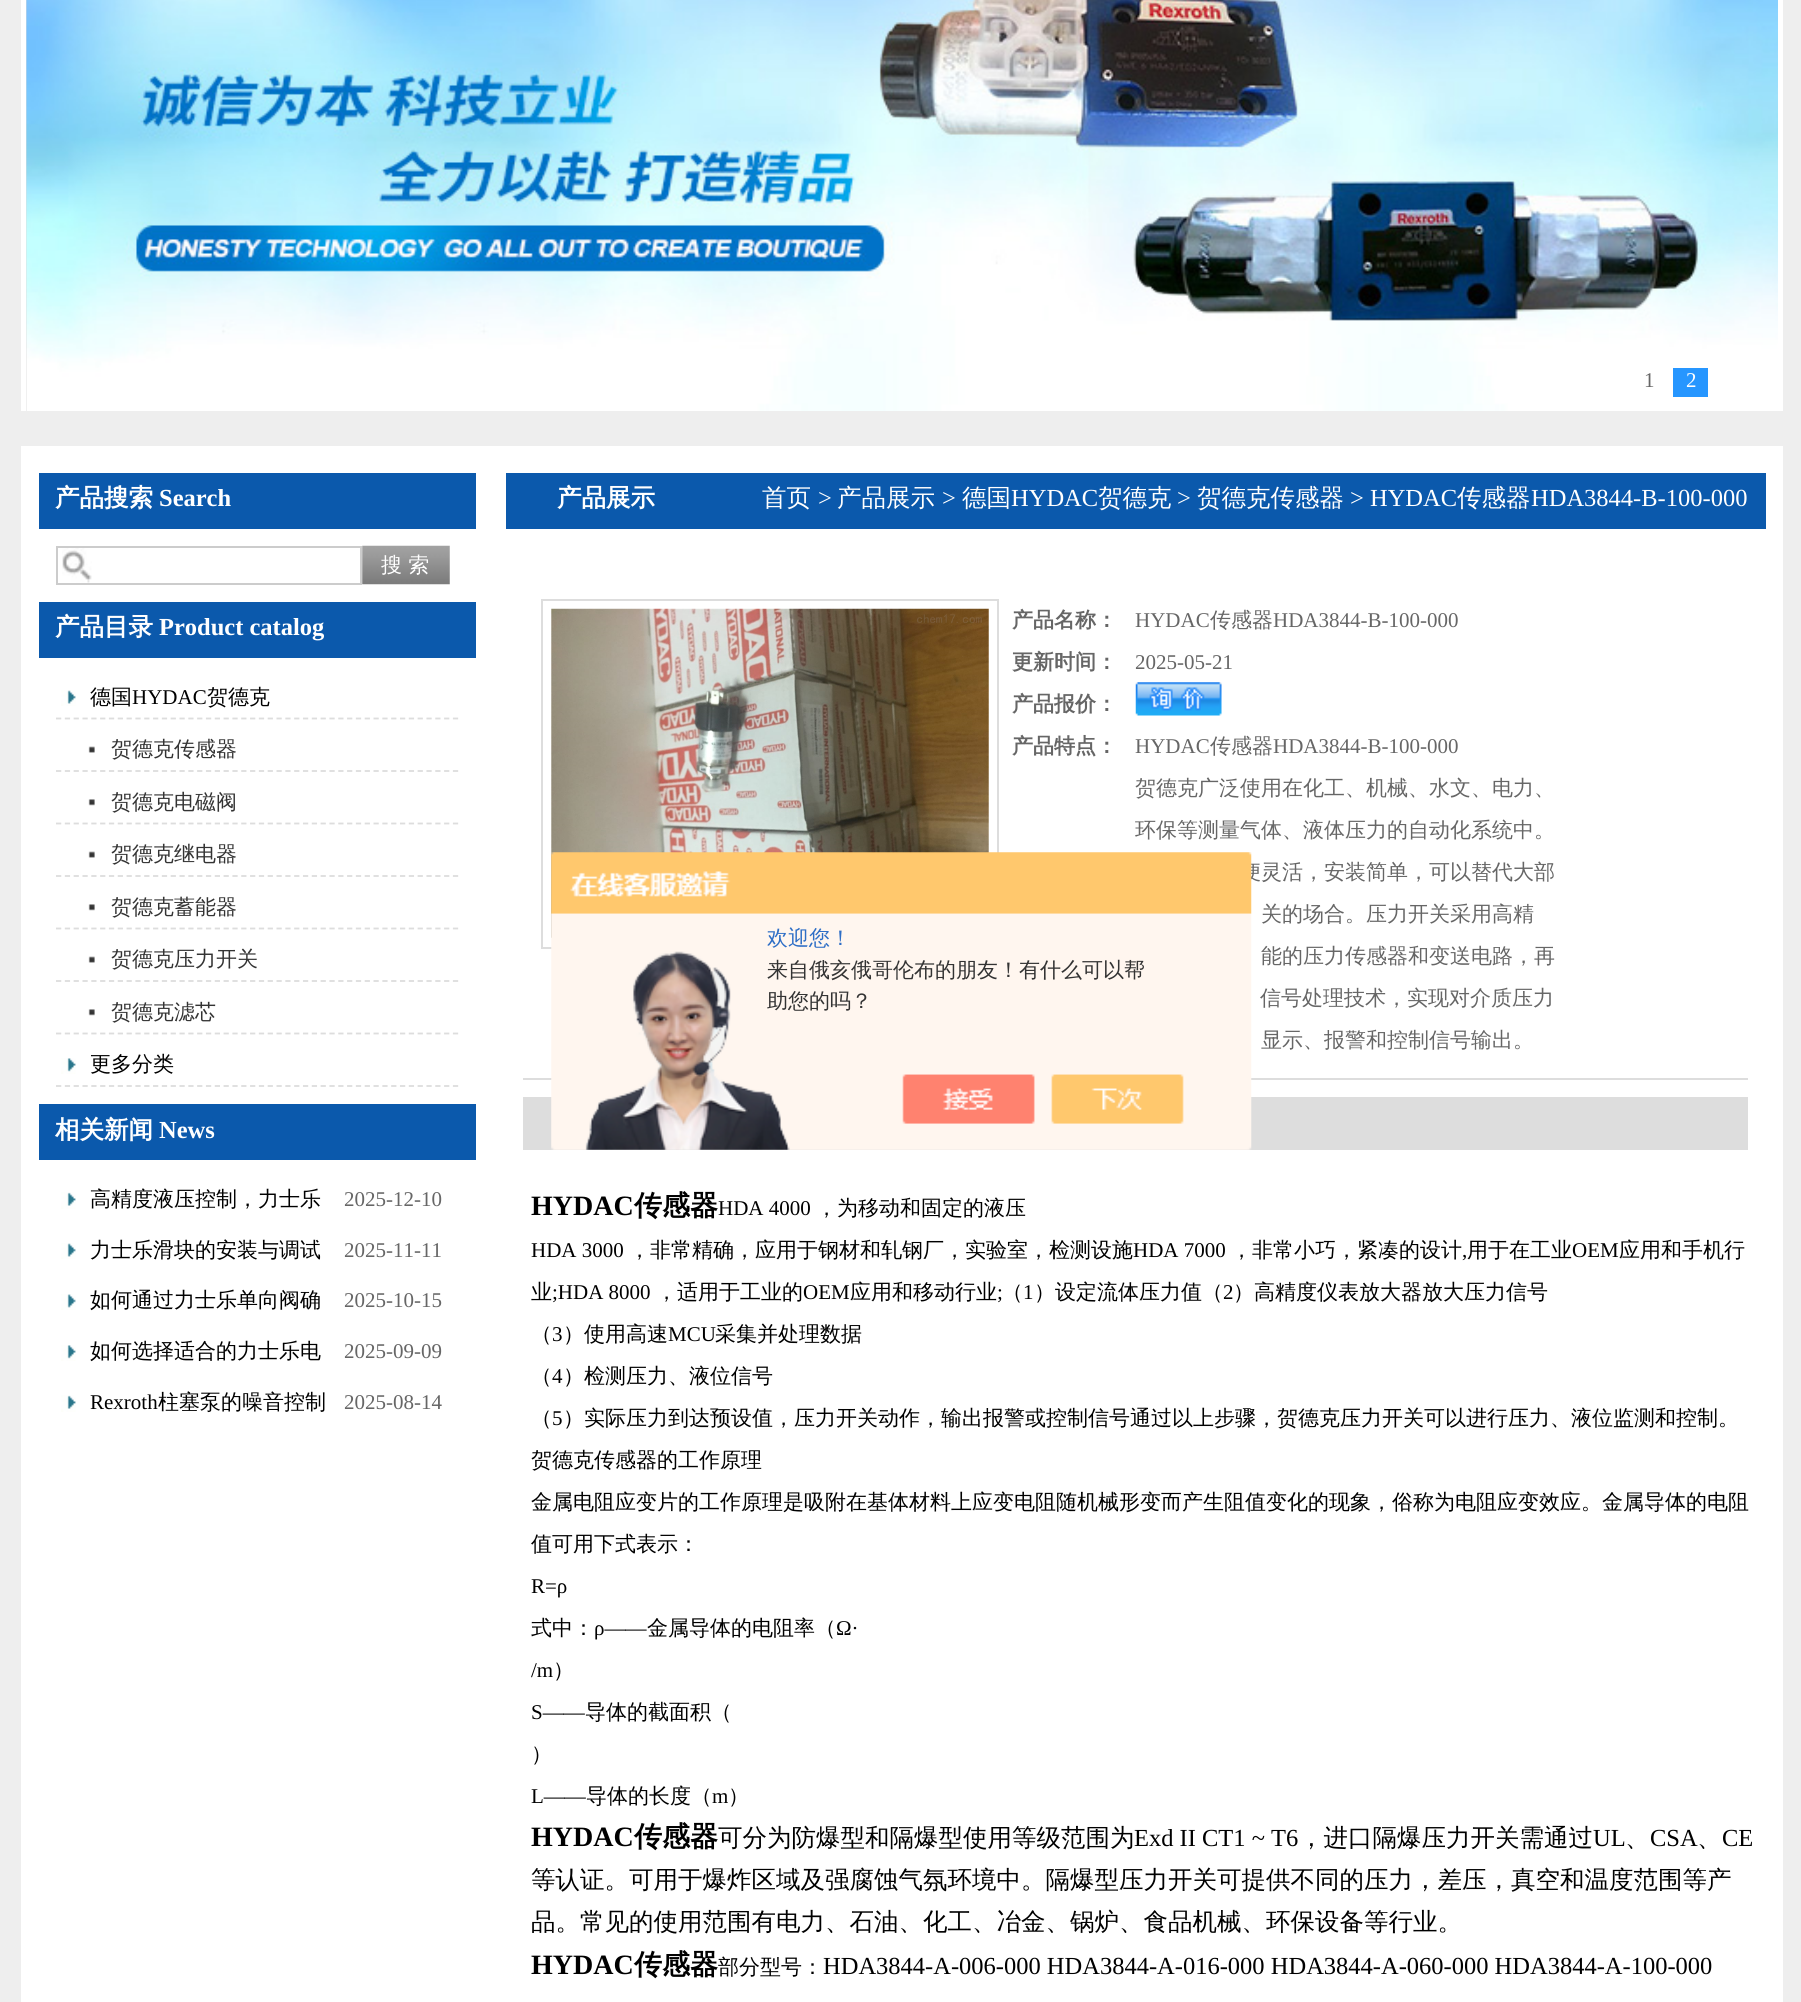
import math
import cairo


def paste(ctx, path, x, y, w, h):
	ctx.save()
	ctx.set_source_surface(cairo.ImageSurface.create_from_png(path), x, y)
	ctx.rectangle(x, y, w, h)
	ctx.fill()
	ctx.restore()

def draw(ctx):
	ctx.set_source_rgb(0.933, 0.933, 0.933)
	ctx.paint()
	ctx.set_source_rgb(1, 1, 1)
	ctx.rectangle(21, 0, 1762, 411)
	ctx.fill()
	ctx.set_source_rgb(0.867, 0.867, 0.867)
	ctx.rectangle(26, 0, 1, 411)
	ctx.fill()
	paste(ctx, 'media/1.png', 26, 0, 1752, 411)
	ctx.select_font_face('Liberation Serif')
	ctx.set_font_size(21)
	ctx.set_source_rgb(0.4, 0.4, 0.4)
	ctx.move_to(1644, 387)
	ctx.show_text('1')
	ctx.set_source_rgb(0.149, 0.588, 1)
	ctx.rectangle(1673, 368, 35, 29)
	ctx.fill()
	ctx.set_source_rgb(1, 1, 1)
	ctx.move_to(1686, 387)
	ctx.show_text('2')
	ctx.rectangle(21, 446, 1762, 1556)
	ctx.fill()
	ctx.set_source_rgb(0.043, 0.349, 0.675)
	ctx.rectangle(39, 473, 437, 56)
	ctx.fill()
	ctx.select_font_face('WenQuanYi Zen Hei', cairo.FONT_SLANT_NORMAL, cairo.FONT_WEIGHT_BOLD)
	ctx.set_font_size(24.5)
	ctx.set_source_rgb(1, 1, 1)
	ctx.move_to(55, 506)
	ctx.show_text('产品搜索')
	ctx.select_font_face('Liberation Serif', cairo.FONT_SLANT_NORMAL, cairo.FONT_WEIGHT_BOLD)
	ctx.move_to(159, 506)
	ctx.show_text('Search')
	paste(ctx, 'media/2.png', 62, 548, 30, 35)
	ctx.rectangle(57, 547, 304, 37)
	ctx.set_source_rgb(0.8, 0.8, 0.8)
	ctx.stroke()
	paste(ctx, 'media/3.png', 362, 545, 88, 40)
	ctx.select_font_face('WenQuanYi Zen Hei Medium')
	ctx.set_font_size(21)
	ctx.set_source_rgb(1, 1, 1)
	ctx.move_to(381, 572)
	ctx.show_text('搜 索')
	ctx.set_source_rgb(0.043, 0.349, 0.675)
	ctx.rectangle(39, 602, 437, 56)
	ctx.fill()
	ctx.select_font_face('WenQuanYi Zen Hei', cairo.FONT_SLANT_NORMAL, cairo.FONT_WEIGHT_BOLD)
	ctx.set_font_size(24.5)
	ctx.set_source_rgb(1, 1, 1)
	ctx.move_to(55, 635)
	ctx.show_text('产品目录')
	ctx.select_font_face('Liberation Serif', cairo.FONT_SLANT_NORMAL, cairo.FONT_WEIGHT_BOLD)
	ctx.move_to(159, 635)
	ctx.show_text('Product catalog')
	paste(ctx, 'media/4.png', 61, 690, 15, 16)
	ctx.new_path()
	ctx.move_to(56, 718.5)
	ctx.line_to(458.5, 718.5)
	ctx.set_source_rgb(0.867, 0.867, 0.867)
	ctx.set_line_width(1.8)
	ctx.set_dash([5.25, 3.57])
	ctx.stroke()
	ctx.select_font_face('WenQuanYi Zen Hei Medium')
	ctx.set_font_size(21)
	ctx.set_source_rgb(0, 0, 0)
	ctx.move_to(90, 704)
	ctx.show_text('德国')
	ctx.select_font_face('Liberation Serif')
	ctx.move_to(132, 704)
	ctx.show_text('HYDAC')
	ctx.select_font_face('WenQuanYi Zen Hei Medium')
	ctx.move_to(207, 704)
	ctx.show_text('贺德克')
	ctx.new_path()
	ctx.move_to(56, 771)
	ctx.line_to(458.5, 771)
	ctx.set_source_rgb(0.867, 0.867, 0.867)
	ctx.stroke()
	paste(ctx, 'media/5.png', 88, 746, 7, 7)
	ctx.set_source_rgb(0.2, 0.2, 0.2)
	ctx.move_to(111, 756)
	ctx.show_text('贺德克传感器')
	ctx.new_path()
	ctx.move_to(56, 823.5)
	ctx.line_to(458.5, 823.5)
	ctx.set_source_rgb(0.867, 0.867, 0.867)
	ctx.stroke()
	paste(ctx, 'media/6.png', 88, 799, 7, 7)
	ctx.set_source_rgb(0.2, 0.2, 0.2)
	ctx.move_to(111, 809)
	ctx.show_text('贺德克电磁阀')
	ctx.new_path()
	ctx.move_to(56, 876)
	ctx.line_to(458.5, 876)
	ctx.set_source_rgb(0.867, 0.867, 0.867)
	ctx.stroke()
	paste(ctx, 'media/5.png', 88, 851, 7, 7)
	ctx.set_source_rgb(0.2, 0.2, 0.2)
	ctx.move_to(111, 861)
	ctx.show_text('贺德克继电器')
	ctx.new_path()
	ctx.move_to(56, 928.5)
	ctx.line_to(458.5, 928.5)
	ctx.set_source_rgb(0.867, 0.867, 0.867)
	ctx.stroke()
	paste(ctx, 'media/6.png', 88, 904, 7, 7)
	ctx.set_source_rgb(0.2, 0.2, 0.2)
	ctx.move_to(111, 914)
	ctx.show_text('贺德克蓄能器')
	ctx.new_path()
	ctx.move_to(56, 981)
	ctx.line_to(458.5, 981)
	ctx.set_source_rgb(0.867, 0.867, 0.867)
	ctx.stroke()
	paste(ctx, 'media/5.png', 88, 956, 7, 7)
	ctx.set_source_rgb(0.2, 0.2, 0.2)
	ctx.move_to(111, 966)
	ctx.show_text('贺德克压力开关')
	ctx.new_path()
	ctx.move_to(56, 1033.5)
	ctx.line_to(458.5, 1033.5)
	ctx.set_source_rgb(0.867, 0.867, 0.867)
	ctx.stroke()
	paste(ctx, 'media/6.png', 88, 1009, 7, 7)
	ctx.set_source_rgb(0.2, 0.2, 0.2)
	ctx.move_to(111, 1019)
	ctx.show_text('贺德克滤芯')
	paste(ctx, 'media/7.png', 61, 1058, 15, 16)
	ctx.new_path()
	ctx.move_to(56, 1086)
	ctx.line_to(458.5, 1086)
	ctx.set_source_rgb(0.867, 0.867, 0.867)
	ctx.stroke()
	ctx.set_source_rgb(0, 0, 0)
	ctx.move_to(90, 1071)
	ctx.show_text('更多分类')
	ctx.set_source_rgb(0.043, 0.349, 0.675)
	ctx.rectangle(39, 1104, 437, 56)
	ctx.fill()
	ctx.select_font_face('WenQuanYi Zen Hei', cairo.FONT_SLANT_NORMAL, cairo.FONT_WEIGHT_BOLD)
	ctx.set_font_size(24.5)
	ctx.set_source_rgb(1, 1, 1)
	ctx.move_to(55, 1138)
	ctx.show_text('相关新闻')
	ctx.select_font_face('Liberation Serif', cairo.FONT_SLANT_NORMAL, cairo.FONT_WEIGHT_BOLD)
	ctx.move_to(159, 1138)
	ctx.show_text('News')
	paste(ctx, 'media/8.png', 61, 1192, 15, 17)
	ctx.select_font_face('WenQuanYi Zen Hei Medium')
	ctx.set_font_size(21)
	ctx.set_source_rgb(0, 0, 0)
	ctx.move_to(90, 1206)
	ctx.show_text('高精度液压控制，力士乐')
	ctx.select_font_face('Liberation Serif')
	ctx.set_source_rgb(0.4, 0.4, 0.4)
	ctx.move_to(344, 1206)
	ctx.show_text('2025-12-10')
	paste(ctx, 'media/4.png', 61, 1243, 15, 16)
	ctx.select_font_face('WenQuanYi Zen Hei Medium')
	ctx.set_source_rgb(0, 0, 0)
	ctx.move_to(90, 1257)
	ctx.show_text('力士乐滑块的安装与调试')
	ctx.select_font_face('Liberation Serif')
	ctx.set_source_rgb(0.4, 0.4, 0.4)
	ctx.move_to(344, 1257)
	ctx.show_text('2025-11-11')
	paste(ctx, 'media/9.png', 61, 1294, 15, 16)
	ctx.select_font_face('WenQuanYi Zen Hei Medium')
	ctx.set_source_rgb(0, 0, 0)
	ctx.move_to(90, 1307)
	ctx.show_text('如何通过力士乐单向阀确')
	ctx.select_font_face('Liberation Serif')
	ctx.set_source_rgb(0.4, 0.4, 0.4)
	ctx.move_to(344, 1307)
	ctx.show_text('2025-10-15')
	paste(ctx, 'media/7.png', 61, 1345, 15, 16)
	ctx.select_font_face('WenQuanYi Zen Hei Medium')
	ctx.set_source_rgb(0, 0, 0)
	ctx.move_to(90, 1358)
	ctx.show_text('如何选择适合的力士乐电')
	ctx.select_font_face('Liberation Serif')
	ctx.set_source_rgb(0.4, 0.4, 0.4)
	ctx.move_to(344, 1358)
	ctx.show_text('2025-09-09')
	paste(ctx, 'media/8.png', 61, 1395, 15, 17)
	ctx.set_source_rgb(0, 0, 0)
	ctx.move_to(90, 1409)
	ctx.show_text('Rexroth')
	ctx.select_font_face('WenQuanYi Zen Hei Medium')
	ctx.move_to(158, 1409)
	ctx.show_text('柱塞泵的噪音控制')
	ctx.select_font_face('Liberation Serif')
	ctx.set_source_rgb(0.4, 0.4, 0.4)
	ctx.move_to(344, 1409)
	ctx.show_text('2025-08-14')
	ctx.set_source_rgb(0.043, 0.349, 0.675)
	ctx.rectangle(506, 473, 1260, 56)
	ctx.fill()
	ctx.select_font_face('WenQuanYi Zen Hei', cairo.FONT_SLANT_NORMAL, cairo.FONT_WEIGHT_BOLD)
	ctx.set_font_size(24.5)
	ctx.set_source_rgb(1, 1, 1)
	ctx.move_to(557, 506)
	ctx.show_text('产品展示')
	ctx.select_font_face('WenQuanYi Zen Hei Medium')
	ctx.move_to(762, 506)
	ctx.show_text('首页')
	ctx.select_font_face('Liberation Serif')
	ctx.move_to(818, 506)
	ctx.show_text('>')
	ctx.select_font_face('WenQuanYi Zen Hei Medium')
	ctx.move_to(837, 506)
	ctx.show_text('产品展示')
	ctx.select_font_face('Liberation Serif')
	ctx.move_to(942, 506)
	ctx.show_text('>')
	ctx.select_font_face('WenQuanYi Zen Hei Medium')
	ctx.move_to(962, 506)
	ctx.show_text('德国')
	ctx.select_font_face('Liberation Serif')
	ctx.move_to(1011, 506)
	ctx.show_text('HYDAC')
	ctx.select_font_face('WenQuanYi Zen Hei Medium')
	ctx.move_to(1098, 506)
	ctx.show_text('贺德克')
	ctx.select_font_face('Liberation Serif')
	ctx.move_to(1177, 506)
	ctx.show_text('>')
	ctx.select_font_face('WenQuanYi Zen Hei Medium')
	ctx.move_to(1197, 506)
	ctx.show_text('贺德克传感器')
	ctx.select_font_face('Liberation Serif')
	ctx.move_to(1350, 506)
	ctx.show_text('> HYDAC')
	ctx.select_font_face('WenQuanYi Zen Hei Medium')
	ctx.move_to(1457, 506)
	ctx.show_text('传感器')
	ctx.select_font_face('Liberation Serif')
	ctx.move_to(1531, 506)
	ctx.show_text('HDA3844-B-100-000')
	ctx.set_source_rgb(0.867, 0.867, 0.867)
	ctx.rectangle(523, 1078, 1225, 2)
	ctx.fill()
	ctx.rectangle(542, 600, 456, 348)
	ctx.set_line_width(2)
	ctx.set_dash([])
	ctx.stroke()
	paste(ctx, 'media/10.png', 551, 608, 438, 330)
	ctx.select_font_face('WenQuanYi Zen Hei', cairo.FONT_SLANT_NORMAL, cairo.FONT_WEIGHT_BOLD)
	ctx.set_font_size(21)
	ctx.set_source_rgb(0.4, 0.4, 0.4)
	ctx.move_to(1012, 627)
	ctx.show_text('产品名称：')
	ctx.select_font_face('Liberation Serif')
	ctx.move_to(1135, 627)
	ctx.show_text('HYDAC')
	ctx.select_font_face('WenQuanYi Zen Hei Medium')
	ctx.move_to(1210, 627)
	ctx.show_text('传感器')
	ctx.select_font_face('Liberation Serif')
	ctx.move_to(1273, 627)
	ctx.show_text('HDA3844-B-100-000')
	ctx.select_font_face('WenQuanYi Zen Hei', cairo.FONT_SLANT_NORMAL, cairo.FONT_WEIGHT_BOLD)
	ctx.move_to(1012, 669)
	ctx.show_text('更新时间：')
	ctx.select_font_face('Liberation Serif')
	ctx.move_to(1135, 669)
	ctx.show_text('2025-05-21')
	ctx.select_font_face('WenQuanYi Zen Hei', cairo.FONT_SLANT_NORMAL, cairo.FONT_WEIGHT_BOLD)
	ctx.move_to(1012, 711)
	ctx.show_text('产品报价：')
	paste(ctx, 'media/11.png', 1135, 682, 87, 34)
	ctx.move_to(1012, 753)
	ctx.show_text('产品特点：')
	ctx.select_font_face('Liberation Serif')
	ctx.move_to(1135, 753)
	ctx.show_text('HYDAC')
	ctx.select_font_face('WenQuanYi Zen Hei Medium')
	ctx.move_to(1210, 753)
	ctx.show_text('传感器')
	ctx.select_font_face('Liberation Serif')
	ctx.move_to(1273, 753)
	ctx.show_text('HDA3844-B-100-000')
	ctx.select_font_face('WenQuanYi Zen Hei Medium')
	for x, y, s in [
		(1135, 795, '贺德克广泛使用在化工、机械、水文、电力、'),
		(1135, 837, '环保等测量气体、液体压力的自动化系统中。'),
		(1240, 879, '便灵活，安装简单，可以替代大部'),
		(1261, 921, '关的场合。压力开关采用高精'),
		(1261, 963, '能的压力传感器和变送电路，再'),
		(1260, 1005, '信号处理技术，实现对介质压力'),
		(1261, 1047, '显示、报警和控制信号输出。'),
	]:
		ctx.move_to(x, y)
		ctx.show_text(s)
	ctx.set_source_rgb(0.867, 0.867, 0.867)
	ctx.rectangle(523, 1097, 1225, 53)
	ctx.fill()
	ctx.select_font_face('Liberation Serif', cairo.FONT_SLANT_NORMAL, cairo.FONT_WEIGHT_BOLD)
	ctx.set_font_size(28)
	ctx.set_source_rgb(0, 0, 0)
	ctx.move_to(531, 1215)
	ctx.show_text('HYDAC')
	ctx.select_font_face('WenQuanYi Zen Hei', cairo.FONT_SLANT_NORMAL, cairo.FONT_WEIGHT_BOLD)
	ctx.move_to(634, 1215)
	ctx.show_text('传感器')
	ctx.select_font_face('Liberation Serif')
	ctx.set_font_size(21)
	ctx.move_to(718, 1215)
	ctx.show_text('HDA 4000')
	ctx.select_font_face('WenQuanYi Zen Hei Medium')
	ctx.move_to(816, 1215)
	ctx.show_text('，为移动和固定的液压')
	ctx.select_font_face('Liberation Serif')
	ctx.move_to(531, 1257)
	ctx.show_text('HDA 3000')
	ctx.select_font_face('WenQuanYi Zen Hei Medium')
	ctx.move_to(629, 1257)
	ctx.show_text('，非常精确，应用于钢材和轧钢厂，实验室，检测设施')
	ctx.select_font_face('Liberation Serif')
	ctx.move_to(1133, 1257)
	ctx.show_text('HDA 7000')
	ctx.select_font_face('WenQuanYi Zen Hei Medium')
	ctx.move_to(1231, 1257)
	ctx.show_text('，非常小巧，紧凑的设计')
	ctx.select_font_face('Liberation Serif')
	ctx.move_to(1462, 1257)
	ctx.show_text(',')
	ctx.select_font_face('WenQuanYi Zen Hei Medium')
	ctx.move_to(1467, 1257)
	ctx.show_text('用于在工业')
	ctx.select_font_face('Liberation Serif')
	ctx.move_to(1572, 1257)
	ctx.show_text('OEM')
	ctx.select_font_face('WenQuanYi Zen Hei Medium')
	ctx.move_to(1619, 1257)
	ctx.show_text('应用和手机行')
	ctx.move_to(531, 1299)
	ctx.show_text('业')
	ctx.select_font_face('Liberation Serif')
	ctx.move_to(552, 1299)
	ctx.show_text(';HDA 8000')
	ctx.select_font_face('WenQuanYi Zen Hei Medium')
	ctx.move_to(656, 1299)
	ctx.show_text('，适用于工业的')
	ctx.select_font_face('Liberation Serif')
	ctx.move_to(803, 1299)
	ctx.show_text('OEM')
	ctx.select_font_face('WenQuanYi Zen Hei Medium')
	ctx.move_to(850, 1299)
	ctx.show_text('应用和移动行业')
	ctx.select_font_face('Liberation Serif')
	ctx.move_to(997, 1299)
	ctx.show_text(';')
	ctx.select_font_face('WenQuanYi Zen Hei Medium')
	ctx.move_to(1002, 1299)
	ctx.show_text('（')
	ctx.select_font_face('Liberation Serif')
	ctx.move_to(1023, 1299)
	ctx.show_text('1')
	ctx.select_font_face('WenQuanYi Zen Hei Medium')
	ctx.move_to(1034, 1299)
	ctx.show_text('）设定流体压力值（')
	ctx.select_font_face('Liberation Serif')
	ctx.move_to(1223, 1299)
	ctx.show_text('2')
	ctx.select_font_face('WenQuanYi Zen Hei Medium')
	ctx.move_to(1233, 1299)
	ctx.show_text('）高精度仪表放大器放大压力信号')
	ctx.move_to(531, 1341)
	ctx.show_text('（')
	ctx.select_font_face('Liberation Serif')
	ctx.move_to(552, 1341)
	ctx.show_text('3')
	ctx.select_font_face('WenQuanYi Zen Hei Medium')
	ctx.move_to(563, 1341)
	ctx.show_text('）使用高速')
	ctx.select_font_face('Liberation Serif')
	ctx.move_to(668, 1341)
	ctx.show_text('MCU')
	ctx.select_font_face('WenQuanYi Zen Hei Medium')
	ctx.move_to(715, 1341)
	ctx.show_text('采集并处理数据')
	ctx.move_to(531, 1383)
	ctx.show_text('（')
	ctx.select_font_face('Liberation Serif')
	ctx.move_to(552, 1383)
	ctx.show_text('4')
	ctx.select_font_face('WenQuanYi Zen Hei Medium')
	ctx.move_to(563, 1383)
	ctx.show_text('）检测压力、液位信号')
	ctx.move_to(531, 1425)
	ctx.show_text('（')
	ctx.select_font_face('Liberation Serif')
	ctx.move_to(552, 1425)
	ctx.show_text('5')
	ctx.select_font_face('WenQuanYi Zen Hei Medium')
	for x, y, s in [
		(563, 1425, '）实际压力到达预设值，压力开关动作，输出报警或控制信号通过以上步骤，贺德克压力开关可以进行压力、液位监测和控制。'),
		(531, 1467, '贺德克传感器的工作原理'),
		(531, 1509, '金属电阻应变片的工作原理是吸附在基体材料上应变电阻随机械形变而产生阻值变化的现象，俗称为电阻应变效应。金属导体的电阻'),
		(531, 1551, '值可用下式表示：'),
	]:
		ctx.move_to(x, y)
		ctx.show_text(s)
	ctx.select_font_face('Liberation Serif')
	ctx.move_to(531, 1593)
	ctx.show_text('R=ρ')
	ctx.select_font_face('WenQuanYi Zen Hei Medium')
	ctx.move_to(531, 1635)
	ctx.show_text('式中：')
	ctx.select_font_face('Liberation Serif')
	ctx.move_to(594, 1635)
	ctx.show_text('ρ——')
	ctx.select_font_face('WenQuanYi Zen Hei Medium')
	ctx.move_to(647, 1635)
	ctx.show_text('金属导体的电阻率（')
	ctx.select_font_face('Liberation Serif')
	ctx.move_to(836, 1635)
	ctx.show_text('Ω·')
	ctx.move_to(531, 1677)
	ctx.show_text('/m')
	ctx.select_font_face('WenQuanYi Zen Hei Medium')
	ctx.move_to(553, 1677)
	ctx.show_text('）')
	ctx.select_font_face('Liberation Serif')
	ctx.move_to(531, 1719)
	ctx.show_text('S——')
	ctx.select_font_face('WenQuanYi Zen Hei Medium')
	ctx.move_to(585, 1719)
	ctx.show_text('导体的截面积（')
	ctx.move_to(531, 1761)
	ctx.show_text('）')
	ctx.select_font_face('Liberation Serif')
	ctx.move_to(531, 1803)
	ctx.show_text('L——')
	ctx.select_font_face('WenQuanYi Zen Hei Medium')
	ctx.move_to(586, 1803)
	ctx.show_text('导体的长度（')
	ctx.select_font_face('Liberation Serif')
	ctx.move_to(712, 1803)
	ctx.show_text('m')
	ctx.select_font_face('WenQuanYi Zen Hei Medium')
	ctx.move_to(728, 1803)
	ctx.show_text('）')
	ctx.select_font_face('Liberation Serif', cairo.FONT_SLANT_NORMAL, cairo.FONT_WEIGHT_BOLD)
	ctx.set_font_size(28)
	ctx.move_to(531, 1846)
	ctx.show_text('HYDAC')
	ctx.select_font_face('WenQuanYi Zen Hei', cairo.FONT_SLANT_NORMAL, cairo.FONT_WEIGHT_BOLD)
	ctx.move_to(634, 1846)
	ctx.show_text('传感器')
	ctx.select_font_face('WenQuanYi Zen Hei Medium')
	ctx.set_font_size(24.5)
	ctx.move_to(718, 1846)
	ctx.show_text('可分为防爆型和隔爆型使用等级范围为')
	ctx.select_font_face('Liberation Serif')
	ctx.move_to(1134, 1846)
	ctx.show_text('Exd II CT1 ~ T6')
	ctx.select_font_face('WenQuanYi Zen Hei Medium')
	ctx.move_to(1299, 1846)
	ctx.show_text('，进口隔爆压力开关需通过')
	ctx.select_font_face('Liberation Serif')
	ctx.move_to(1593, 1846)
	ctx.show_text('UL')
	ctx.select_font_face('WenQuanYi Zen Hei Medium')
	ctx.move_to(1625, 1846)
	ctx.show_text('、')
	ctx.select_font_face('Liberation Serif')
	ctx.move_to(1650, 1846)
	ctx.show_text('CSA')
	ctx.select_font_face('WenQuanYi Zen Hei Medium')
	ctx.move_to(1697, 1846)
	ctx.show_text('、')
	ctx.select_font_face('Liberation Serif')
	ctx.move_to(1722, 1846)
	ctx.show_text('CE')
	ctx.select_font_face('WenQuanYi Zen Hei Medium')
	ctx.move_to(531, 1888)
	ctx.show_text('等认证。可用于爆炸区域及强腐蚀气氛环境中。隔爆型压力开关可提供不同的压力，差压，真空和温度范围等产')
	ctx.move_to(531, 1930)
	ctx.show_text('品。常见的使用范围有电力、石油、化工、冶金、锅炉、食品机械、环保设备等行业。')
	ctx.select_font_face('Liberation Serif', cairo.FONT_SLANT_NORMAL, cairo.FONT_WEIGHT_BOLD)
	ctx.set_font_size(28)
	ctx.move_to(531, 1974)
	ctx.show_text('HYDAC')
	ctx.select_font_face('WenQuanYi Zen Hei', cairo.FONT_SLANT_NORMAL, cairo.FONT_WEIGHT_BOLD)
	ctx.move_to(634, 1974)
	ctx.show_text('传感器')
	ctx.select_font_face('WenQuanYi Zen Hei Medium')
	ctx.set_font_size(21)
	ctx.move_to(718, 1974)
	ctx.show_text('部分型号：')
	ctx.select_font_face('Liberation Serif')
	ctx.set_font_size(24.5)
	ctx.move_to(823, 1974)
	ctx.show_text('HDA3844-A-006-000 HDA3844-A-016-000 HDA3844-A-060-000 HDA3844-A-100-000')
	paste(ctx, 'media/12.png', 551, 852, 701, 298)
	ctx.select_font_face('WenQuanYi Zen Hei Medium')
	ctx.set_font_size(21)
	ctx.set_source_rgb(0.18, 0.431, 0.776)
	ctx.move_to(767, 945)
	ctx.show_text('欢迎您！')
	ctx.set_source_rgb(0.2, 0.2, 0.2)
	ctx.move_to(767, 977)
	ctx.show_text('来自俄亥俄哥伦布的朋友！有什么可以帮')
	ctx.move_to(767, 1008)
	ctx.show_text('助您的吗？')


surface = cairo.ImageSurface(cairo.FORMAT_RGB24, 1801, 2002)
ctx = cairo.Context(surface)
options = cairo.FontOptions()
options.set_hint_metrics(cairo.HINT_METRICS_OFF)
options.set_hint_style(cairo.HINT_STYLE_NONE)
ctx.set_font_options(options)
ctx.set_miter_limit(4)
draw(ctx)
surface.write_to_png('image.png')
